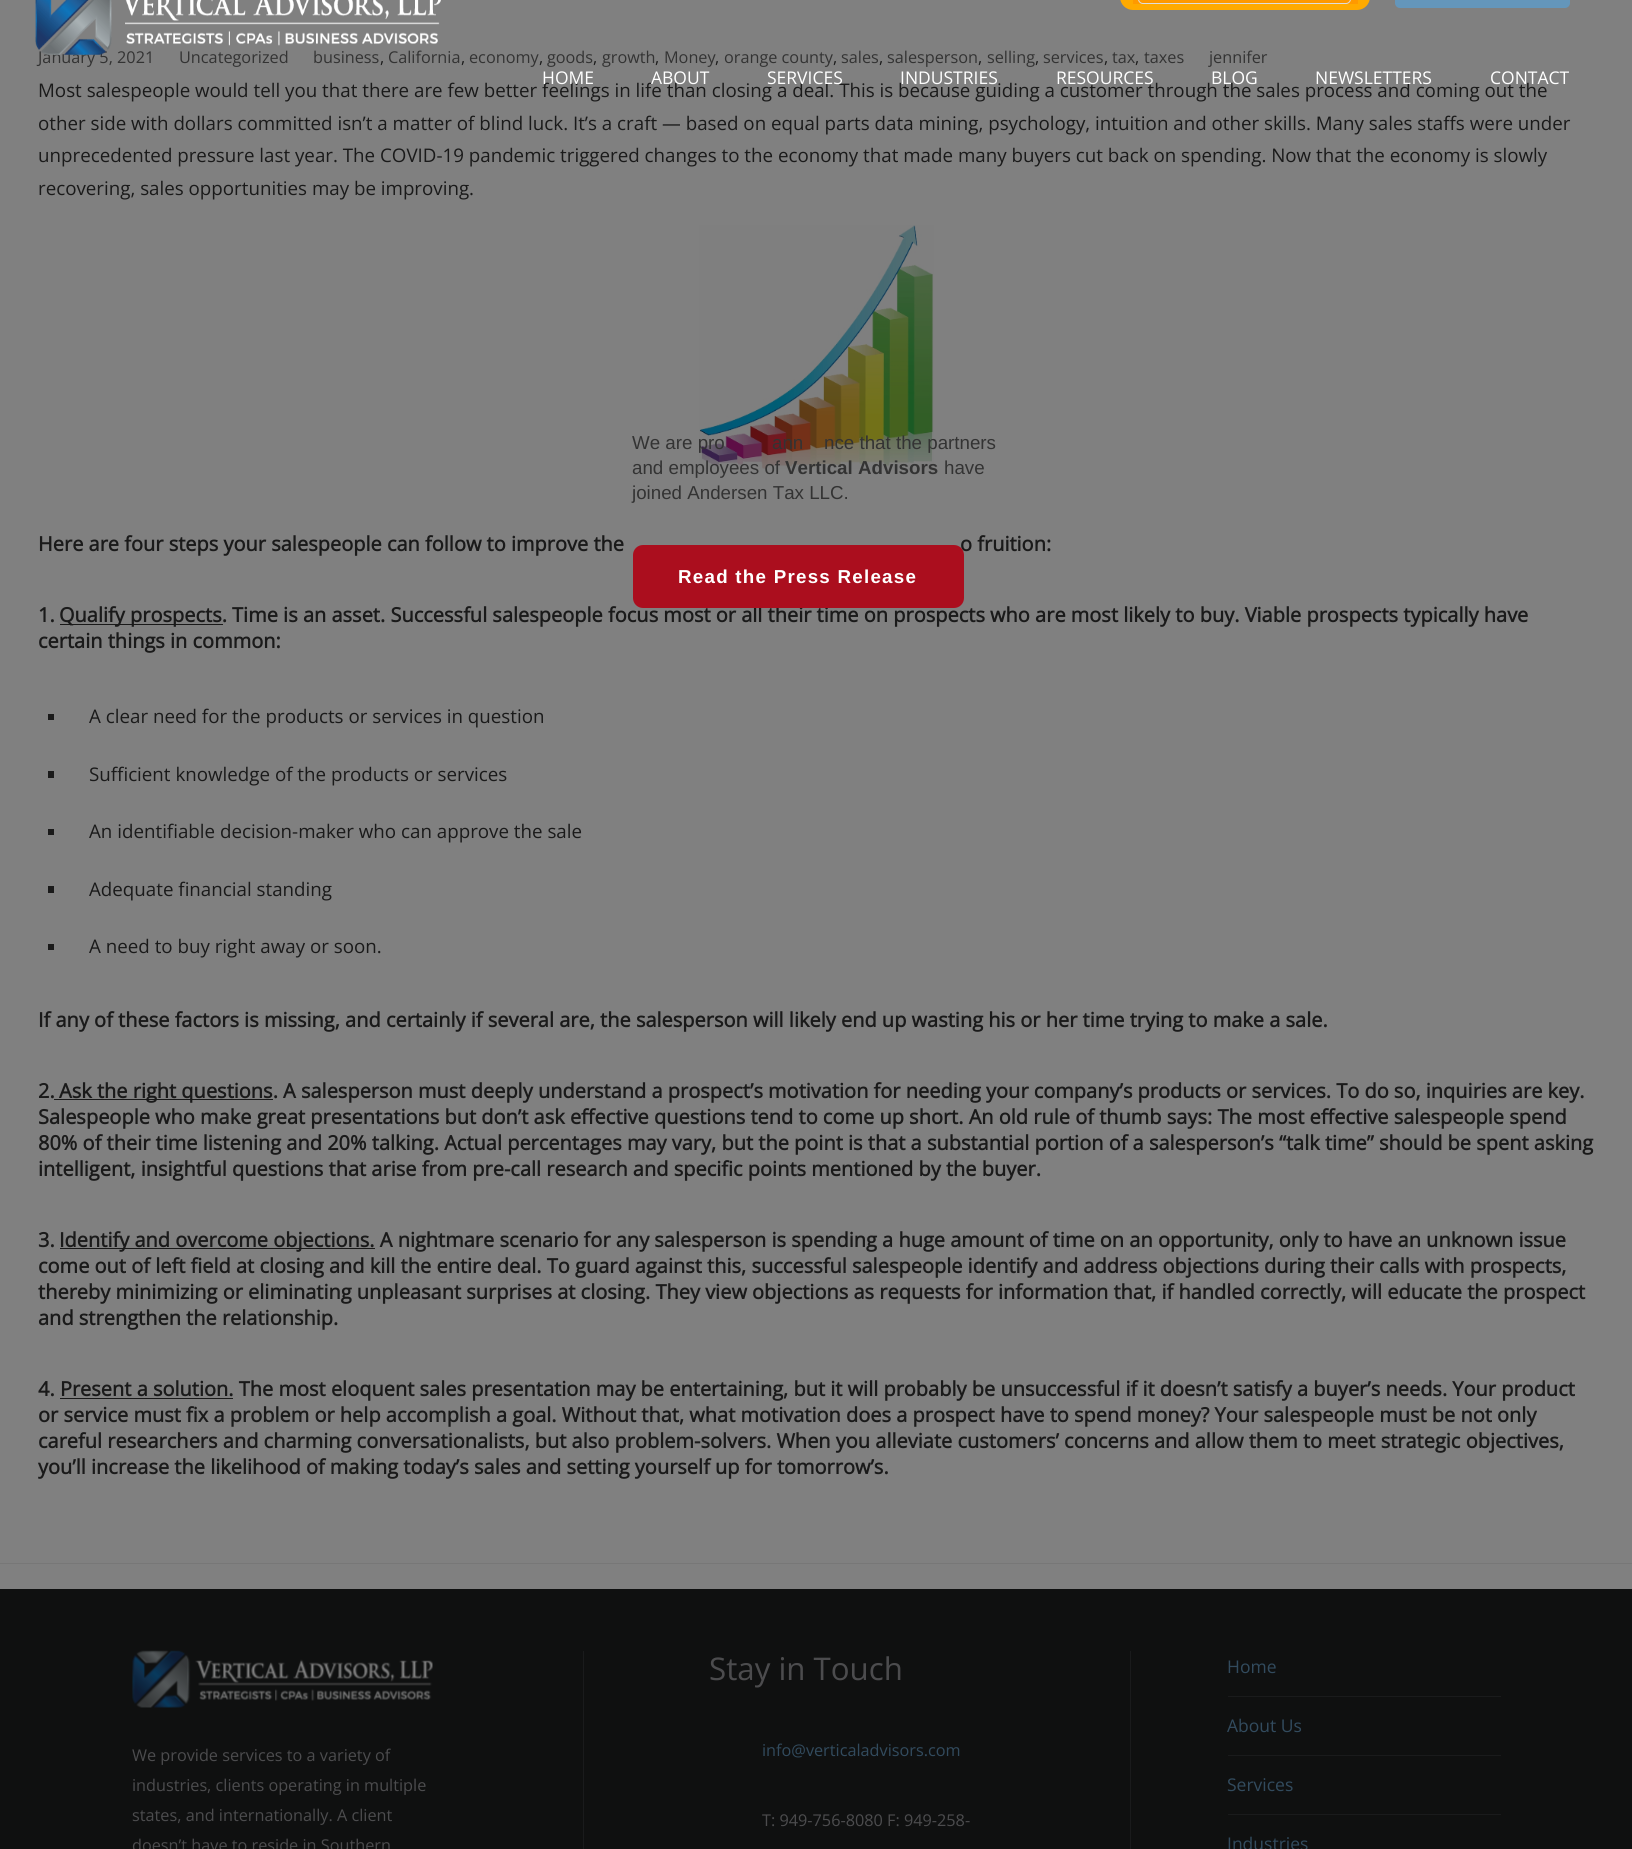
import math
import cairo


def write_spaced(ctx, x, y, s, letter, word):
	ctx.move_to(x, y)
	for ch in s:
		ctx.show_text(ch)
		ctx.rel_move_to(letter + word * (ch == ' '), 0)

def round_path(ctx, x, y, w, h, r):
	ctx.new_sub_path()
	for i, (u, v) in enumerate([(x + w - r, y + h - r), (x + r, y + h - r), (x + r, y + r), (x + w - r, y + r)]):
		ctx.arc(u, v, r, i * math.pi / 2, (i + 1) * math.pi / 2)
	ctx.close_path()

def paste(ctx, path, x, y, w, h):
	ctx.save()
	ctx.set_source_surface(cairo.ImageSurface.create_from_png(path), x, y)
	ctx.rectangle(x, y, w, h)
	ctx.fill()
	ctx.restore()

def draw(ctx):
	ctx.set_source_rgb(0.502, 0.502, 0.502)
	ctx.paint()
	ctx.set_source_rgb(0.467, 0.467, 0.467)
	ctx.rectangle(0, 1563, 1632, 1)
	ctx.fill()
	ctx.select_font_face('Open Sans')
	ctx.set_font_size(16.25)
	ctx.set_source_rgb(0.2, 0.2, 0.2)
	for x, y, s in [
		(38, 63, 'January 5, 2021'),
		(179, 63, 'Uncategorized'),
		(313, 63, 'business'),
	]:
		ctx.move_to(x, y)
		ctx.show_text(s)
	ctx.set_source_rgb(0.102, 0.102, 0.102)
	ctx.move_to(380, 63)
	ctx.show_text(',')
	ctx.set_source_rgb(0.2, 0.2, 0.2)
	ctx.move_to(388, 63)
	ctx.show_text('California')
	ctx.set_source_rgb(0.102, 0.102, 0.102)
	ctx.move_to(461, 63)
	ctx.show_text(',')
	ctx.set_source_rgb(0.2, 0.2, 0.2)
	ctx.move_to(469, 63)
	ctx.show_text('economy')
	ctx.set_source_rgb(0.102, 0.102, 0.102)
	ctx.move_to(539, 63)
	ctx.show_text(',')
	ctx.set_source_rgb(0.2, 0.2, 0.2)
	ctx.move_to(547, 63)
	ctx.show_text('goods')
	ctx.set_source_rgb(0.102, 0.102, 0.102)
	ctx.move_to(593, 63)
	ctx.show_text(',')
	ctx.set_source_rgb(0.2, 0.2, 0.2)
	ctx.move_to(602, 63)
	ctx.show_text('growth')
	ctx.set_source_rgb(0.102, 0.102, 0.102)
	ctx.move_to(655, 63)
	ctx.show_text(',')
	ctx.set_source_rgb(0.2, 0.2, 0.2)
	ctx.move_to(664, 63)
	ctx.show_text('Money')
	ctx.set_source_rgb(0.102, 0.102, 0.102)
	ctx.move_to(715, 63)
	ctx.show_text(',')
	ctx.set_source_rgb(0.2, 0.2, 0.2)
	ctx.move_to(724, 63)
	ctx.show_text('orange county')
	ctx.set_source_rgb(0.102, 0.102, 0.102)
	ctx.move_to(833, 63)
	ctx.show_text(',')
	ctx.set_source_rgb(0.2, 0.2, 0.2)
	ctx.move_to(841, 63)
	ctx.show_text('sales')
	ctx.set_source_rgb(0.102, 0.102, 0.102)
	ctx.move_to(879, 63)
	ctx.show_text(',')
	ctx.set_source_rgb(0.2, 0.2, 0.2)
	ctx.move_to(887, 63)
	ctx.show_text('salesperson')
	ctx.set_source_rgb(0.102, 0.102, 0.102)
	ctx.move_to(978, 63)
	ctx.show_text(',')
	ctx.set_source_rgb(0.2, 0.2, 0.2)
	ctx.move_to(987, 63)
	ctx.show_text('selling')
	ctx.set_source_rgb(0.102, 0.102, 0.102)
	ctx.move_to(1035, 63)
	ctx.show_text(',')
	ctx.set_source_rgb(0.2, 0.2, 0.2)
	ctx.move_to(1043, 63)
	ctx.show_text('services')
	ctx.set_source_rgb(0.102, 0.102, 0.102)
	ctx.move_to(1104, 63)
	ctx.show_text(',')
	ctx.set_source_rgb(0.2, 0.2, 0.2)
	ctx.move_to(1112, 63)
	ctx.show_text('tax')
	ctx.set_source_rgb(0.102, 0.102, 0.102)
	ctx.move_to(1135, 63)
	ctx.show_text(',')
	ctx.set_source_rgb(0.2, 0.2, 0.2)
	ctx.move_to(1144, 63)
	ctx.show_text('taxes')
	ctx.move_to(1209, 63)
	ctx.show_text('jennifer')
	ctx.set_font_size(18.75)
	ctx.set_source_rgb(0.102, 0.102, 0.102)
	for x, y, s in [
		(38, 97, 'Most salespeople would tell you that there are few better feelings in life than closing a deal. This is because guiding a customer through the sales process and coming out the'),
		(38, 130, 'other side with dollars committed isn’t a matter of blind luck. It’s a craft — based on equal parts data mining, psychology, intuition and other skills. Many sales staffs were under'),
		(38, 162, 'unprecedented pressure last year. The COVID-19 pandemic triggered changes to the economy that made many buyers cut back on spending. Now that the economy is slowly'),
		(38, 195, 'recovering, sales opportunities may be improving.'),
	]:
		ctx.move_to(x, y)
		ctx.show_text(s)
	paste(ctx, 'media/1.png', 699, 225, 235, 244)
	ctx.select_font_face('Open Sans', cairo.FONT_SLANT_NORMAL, cairo.FONT_WEIGHT_BOLD)
	ctx.set_font_size(20)
	for x, y, s in [
		(38, 551, 'Here are four steps your salespeople can follow to improve the'),
		(960, 551, 'o fruition:'),
		(38, 622, '1.'),
	]:
		ctx.move_to(x, y)
		ctx.show_text(s)
	ctx.rectangle(60, 624, 163, 1)
	ctx.fill()
	ctx.move_to(59, 622)
	ctx.show_text('Qualify prospects. Time is an asset. Successful salespeople focus most or all their time on prospects who are most likely to buy. Viable prospects typically have')
	ctx.move_to(38, 648)
	ctx.show_text('certain things in common:')
	ctx.rectangle(48, 714, 6, 6)
	ctx.fill()
	ctx.select_font_face('Open Sans')
	ctx.set_font_size(18.75)
	ctx.move_to(89, 723)
	ctx.show_text('A clear need for the products or services in question')
	ctx.rectangle(48, 771, 6, 7)
	ctx.fill()
	ctx.move_to(89, 781)
	ctx.show_text('Sufficient knowledge of the products or services')
	ctx.rectangle(48, 829, 6, 6)
	ctx.fill()
	ctx.move_to(89, 838)
	ctx.show_text('An identifiable decision-maker who can approve the sale')
	ctx.rectangle(48, 886, 6, 7)
	ctx.fill()
	ctx.move_to(89, 896)
	ctx.show_text('Adequate financial standing')
	ctx.rectangle(48, 944, 6, 6)
	ctx.fill()
	ctx.move_to(89, 953)
	ctx.show_text('A need to buy right away or soon.')
	ctx.select_font_face('Open Sans', cairo.FONT_SLANT_NORMAL, cairo.FONT_WEIGHT_BOLD)
	ctx.set_font_size(20)
	ctx.move_to(38, 1027)
	ctx.show_text('If any of these factors is missing, and certainly if several are, the salesperson will likely end up wasting his or her time trying to make a sale.')
	ctx.move_to(38, 1098)
	ctx.show_text('2.')
	ctx.rectangle(54, 1099, 219, 1)
	ctx.fill()
	for x, y, s in [
		(59, 1098, 'Ask the right questions. A salesperson must deeply understand a prospect’s motivation for needing your company’s products or services. To do so, inquiries are key.'),
		(38, 1124, 'Salespeople who make great presentations but don’t ask effective questions tend to come up short. An old rule of thumb says: The most effective salespeople spend'),
		(38, 1150, '80% of their time listening and 20% talking. Actual percentages may vary, but the point is that a substantial portion of a salesperson’s “talk time” should be spent asking'),
		(38, 1176, 'intelligent, insightful questions that arise from pre-call research and specific points mentioned by the buyer.'),
		(38, 1247, '3.'),
	]:
		ctx.move_to(x, y)
		ctx.show_text(s)
	ctx.rectangle(60, 1248, 315, 1)
	ctx.fill()
	for x, y, s in [
		(59, 1247, 'Identify and overcome objections. A nightmare scenario for any salesperson is spending a huge amount of time on an opportunity, only to have an unknown issue'),
		(38, 1273, 'come out of left field at closing and kill the entire deal. To guard against this, successful salespeople identify and address objections during their calls with prospects,'),
		(38, 1299, 'thereby minimizing or eliminating unpleasant surprises at closing. They view objections as requests for information that, if handled correctly, will educate the prospect'),
		(38, 1325, 'and strengthen the relationship.'),
		(38, 1396, '4. Present a solution. The most eloquent sales presentation may be entertaining, but it will probably be unsuccessful if it doesn’t satisfy a buyer’s needs. Your product'),
	]:
		ctx.move_to(x, y)
		ctx.show_text(s)
	ctx.rectangle(60, 1398, 173, 1)
	ctx.fill()
	for x, y, s in [
		(38, 1422, 'or service must fix a problem or help accomplish a goal. Without that, what motivation does a prospect have to spend money? Your salespeople must be not only'),
		(38, 1448, 'careful researchers and charming conversationalists, but also problem-solvers. When you alleviate customers’ concerns and allow them to meet strategic objectives,'),
		(38, 1474, 'you’ll increase the likelihood of making today’s sales and setting yourself up for tomorrow’s.'),
	]:
		ctx.move_to(x, y)
		ctx.show_text(s)
	ctx.select_font_face('Liberation Sans')
	ctx.set_font_size(18.75)
	ctx.set_source_rgb(0.2, 0.2, 0.2)
	for x, y, s in [
		(632, 449, 'We are pro'),
		(772, 449, 'ann'),
		(824, 449, 'nce that the partners'),
		(632, 474, 'and employees of'),
	]:
		ctx.move_to(x, y)
		ctx.show_text(s)
	ctx.select_font_face('Liberation Sans', cairo.FONT_SLANT_NORMAL, cairo.FONT_WEIGHT_BOLD)
	ctx.move_to(785, 474)
	ctx.show_text('Vertical Advisors')
	ctx.select_font_face('Liberation Sans')
	ctx.move_to(944, 474)
	ctx.show_text('have')
	ctx.move_to(632, 499)
	ctx.show_text('joined Andersen Tax LLC.')
	ctx.set_source_rgb(0.671, 0.055, 0.118)
	round_path(ctx, 633, 545, 331, 63, 10)
	ctx.fill()
	ctx.select_font_face('Liberation Sans', cairo.FONT_SLANT_NORMAL, cairo.FONT_WEIGHT_BOLD)
	ctx.set_source_rgb(1, 1, 1)
	write_spaced(ctx, 678, 583, 'Read the Press Release', 1.25, 0)
	ctx.set_source_rgb(0.059, 0.063, 0.063)
	ctx.rectangle(0, 1589, 1632, 260)
	ctx.fill()
	ctx.set_source_rgb(0.102, 0.106, 0.11)
	ctx.rectangle(583, 1651, 1, 198)
	ctx.fill()
	paste(ctx, 'media/2.png', 132, 1650, 301, 58)
	ctx.select_font_face('Open Sans')
	ctx.set_font_size(16.25)
	ctx.set_source_rgb(0.298, 0.298, 0.306)
	for x, y, s in [
		(132, 1761, 'We provide services to a variety of'),
		(132, 1791, 'industries, clients operating in multiple'),
		(132, 1821, 'states, and internationally. A client'),
		(132, 1851, 'doesn’t have to reside in Southern'),
	]:
		ctx.move_to(x, y)
		ctx.show_text(s)
	ctx.set_source_rgb(0.102, 0.106, 0.11)
	ctx.rectangle(1130, 1651, 1, 198)
	ctx.fill()
	ctx.set_font_size(31.25)
	ctx.set_source_rgb(0.298, 0.298, 0.306)
	ctx.move_to(709, 1680)
	ctx.show_text('Stay in Touch')
	ctx.set_font_size(16.25)
	ctx.set_source_rgb(0.196, 0.294, 0.369)
	ctx.move_to(762, 1756)
	ctx.show_text('info@verticaladvisors.com')
	ctx.set_source_rgb(0.298, 0.298, 0.306)
	ctx.move_to(762, 1826)
	ctx.show_text('T: 949-756-8080 F: 949-258-')
	ctx.set_source_rgb(0.102, 0.106, 0.11)
	ctx.rectangle(1228, 1696, 273, 1)
	ctx.fill()
	ctx.set_font_size(17.5)
	ctx.set_source_rgb(0.196, 0.294, 0.369)
	ctx.move_to(1227, 1673)
	ctx.show_text('Home')
	ctx.set_source_rgb(0.102, 0.106, 0.11)
	ctx.rectangle(1228, 1755, 273, 1)
	ctx.fill()
	ctx.set_source_rgb(0.196, 0.294, 0.369)
	ctx.move_to(1227, 1732)
	ctx.show_text('About Us')
	ctx.set_source_rgb(0.102, 0.106, 0.11)
	ctx.rectangle(1228, 1814, 273, 1)
	ctx.fill()
	ctx.set_source_rgb(0.196, 0.294, 0.369)
	ctx.move_to(1227, 1791)
	ctx.show_text('Services')
	ctx.move_to(1227, 1850)
	ctx.show_text('Industries')
	ctx.set_source_rgb(1, 0.667, 0)
	round_path(ctx, 1120, -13, 250, 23, 13)
	ctx.fill()
	ctx.set_source_rgb(1, 0.6, 0)
	ctx.rectangle(1133, 0, 225, 4)
	ctx.fill()
	round_path(ctx, 1138.5, -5.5, 212, 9, 4.5)
	ctx.set_source_rgb(0.867, 0.867, 0.867)
	ctx.set_line_width(1)
	ctx.stroke()
	ctx.set_source_rgb(0.392, 0.588, 0.733)
	round_path(ctx, 1395, -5, 175, 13, 5)
	ctx.fill()
	paste(ctx, 'media/3.png', 35, 0, 406, 55)
	ctx.set_source_rgb(1, 1, 1)
	for x, y, s in [
		(542, 84, 'HOME'),
		(651, 84, 'ABOUT'),
		(767, 84, 'SERVICES'),
		(900, 84, 'INDUSTRIES'),
		(1056, 84, 'RESOURCES'),
		(1211, 84, 'BLOG'),
		(1315, 84, 'NEWSLETTERS'),
		(1490, 84, 'CONTACT'),
	]:
		ctx.move_to(x, y)
		ctx.show_text(s)


surface = cairo.ImageSurface(cairo.FORMAT_RGB24, 1632, 1849)
ctx = cairo.Context(surface)
options = cairo.FontOptions()
options.set_hint_metrics(cairo.HINT_METRICS_OFF)
options.set_hint_style(cairo.HINT_STYLE_NONE)
ctx.set_font_options(options)
ctx.set_miter_limit(4)
draw(ctx)
surface.write_to_png('image.png')
